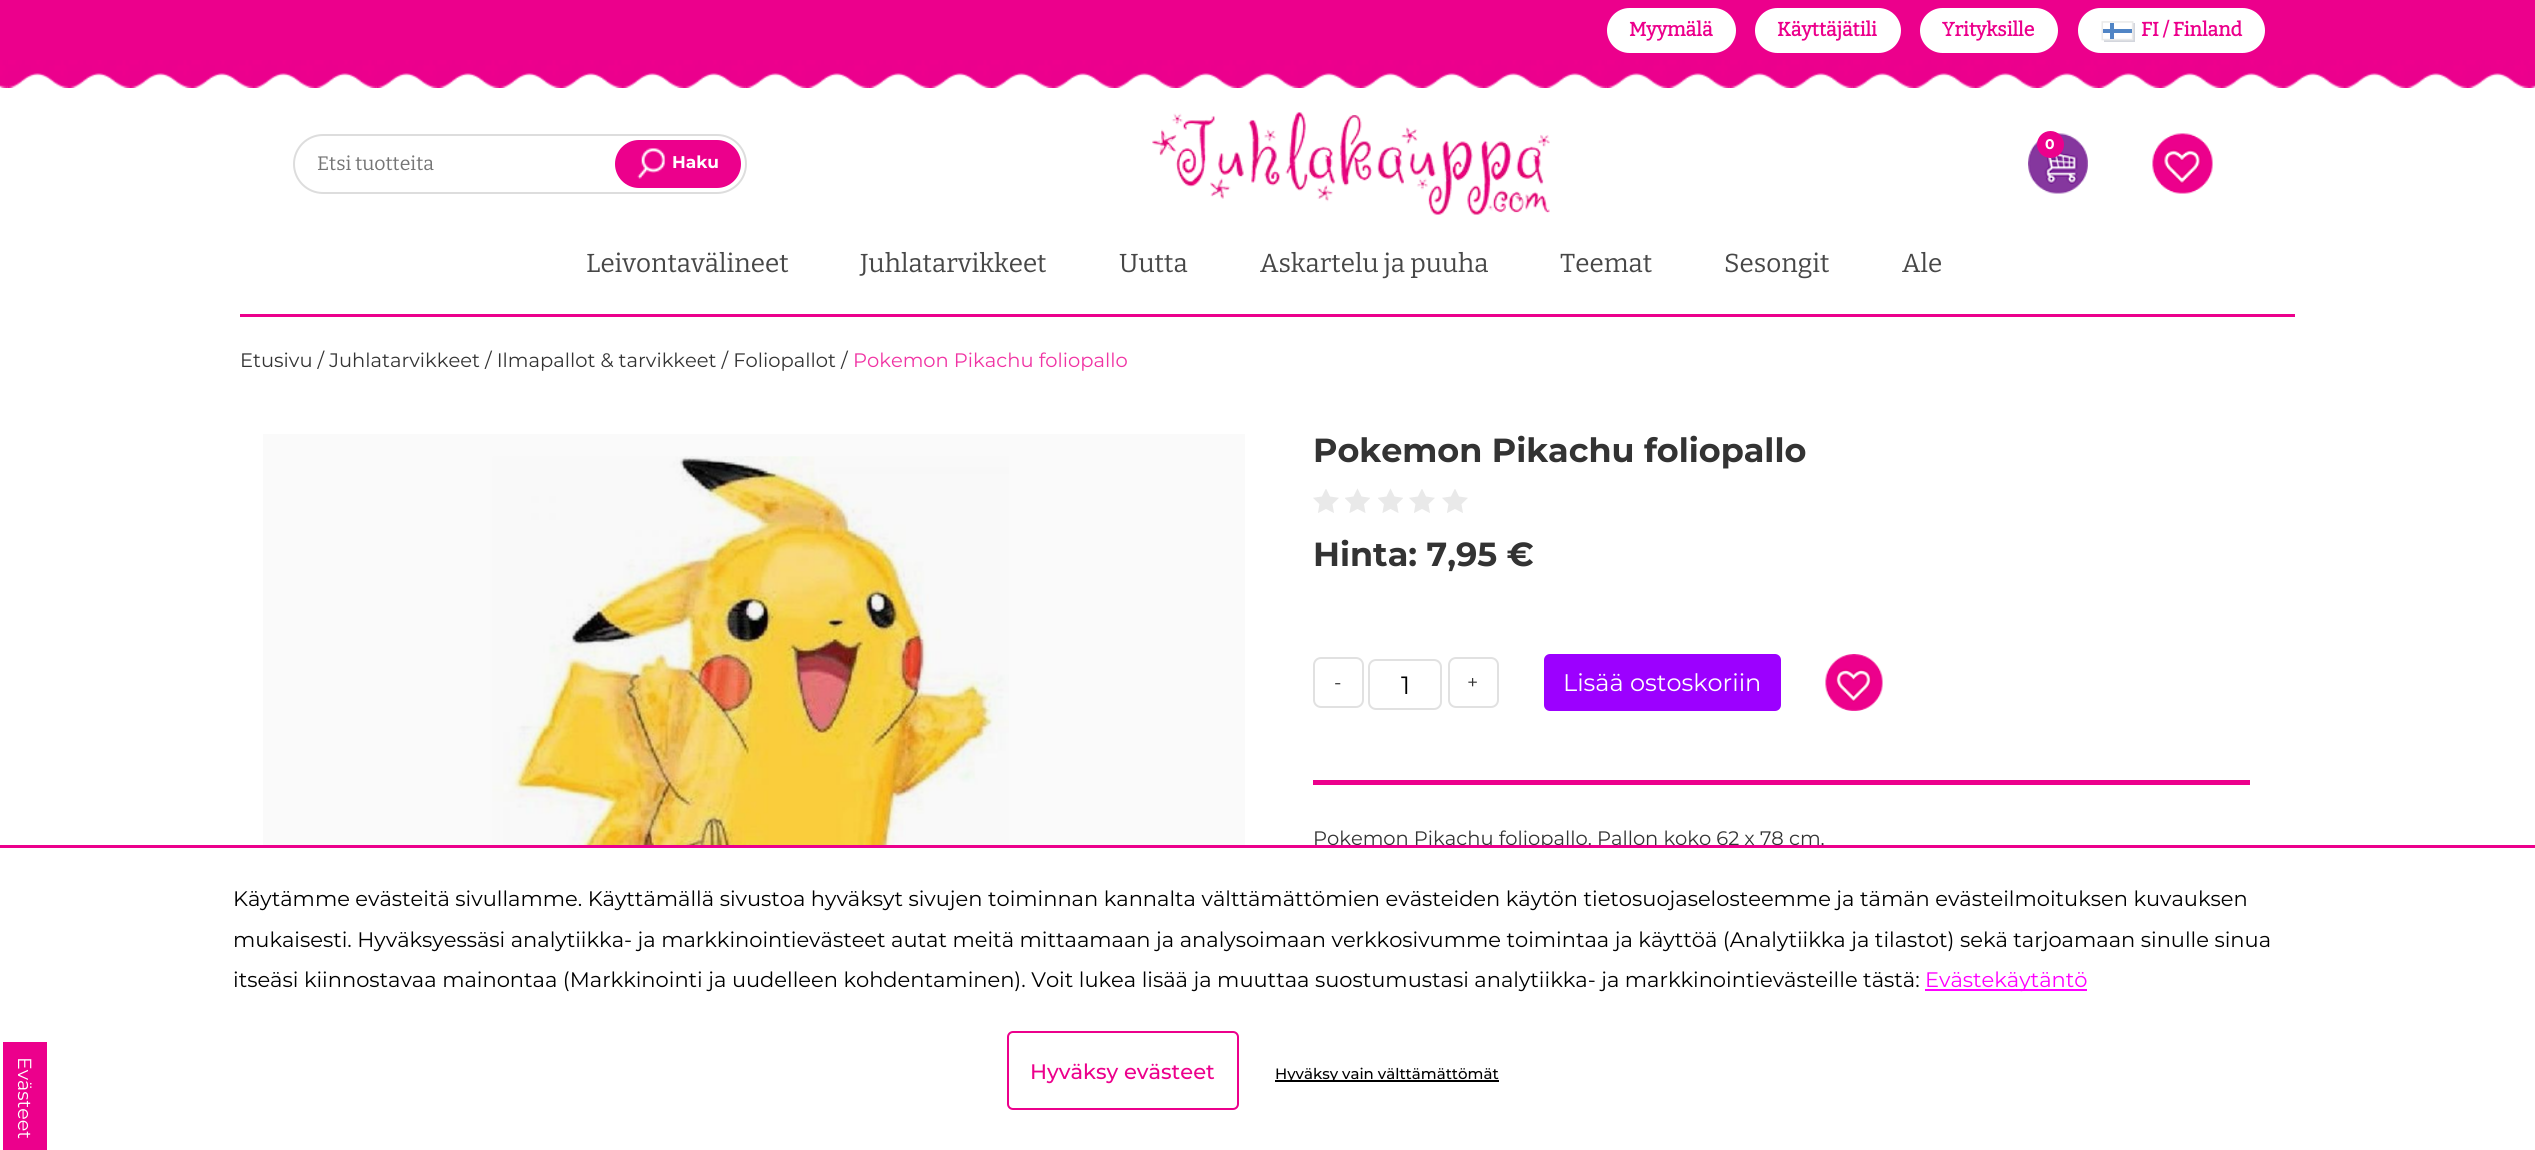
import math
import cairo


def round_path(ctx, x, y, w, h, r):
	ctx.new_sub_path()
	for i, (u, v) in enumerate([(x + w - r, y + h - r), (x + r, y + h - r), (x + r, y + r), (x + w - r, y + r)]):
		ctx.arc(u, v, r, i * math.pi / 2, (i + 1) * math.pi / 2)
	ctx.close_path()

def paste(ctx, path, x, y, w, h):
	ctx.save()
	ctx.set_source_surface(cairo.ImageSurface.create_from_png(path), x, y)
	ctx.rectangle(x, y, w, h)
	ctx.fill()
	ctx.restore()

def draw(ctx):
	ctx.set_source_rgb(1, 1, 1)
	ctx.paint()
	ctx.set_source_rgb(0.925, 0, 0.549)
	ctx.rectangle(0, 0, 2535, 60)
	ctx.fill()
	ctx.set_source_rgb(1, 1, 1)
	round_path(ctx, 1607, 8, 129, 45, 22.5)
	ctx.fill()
	ctx.select_font_face('Bitter', cairo.FONT_SLANT_NORMAL, cairo.FONT_WEIGHT_BOLD)
	ctx.set_font_size(19.5)
	ctx.set_source_rgb(0.925, 0, 0.549)
	ctx.move_to(1629, 36)
	ctx.show_text('Myymälä')
	ctx.set_source_rgb(1, 1, 1)
	round_path(ctx, 1755, 8, 146, 45, 22.5)
	ctx.fill()
	ctx.set_source_rgb(0.925, 0, 0.549)
	ctx.move_to(1777, 36)
	ctx.show_text('Käyttäjätili')
	ctx.set_source_rgb(1, 1, 1)
	round_path(ctx, 1920, 8, 138, 45, 22.5)
	ctx.fill()
	ctx.set_source_rgb(0.925, 0, 0.549)
	ctx.move_to(1942, 36)
	ctx.show_text('Yrityksille')
	ctx.set_source_rgb(1, 1, 1)
	round_path(ctx, 2078, 8, 187, 45, 22.5)
	ctx.fill()
	paste(ctx, 'media/1.png', 2101, 21, 34, 21)
	ctx.set_source_rgb(0.925, 0, 0.549)
	ctx.move_to(2141, 36)
	ctx.show_text('FI / Finland')
	paste(ctx, 'media/2.png', 0, 60, 2535, 28)
	ctx.rectangle(240, 314, 2055, 3)
	ctx.fill()
	paste(ctx, 'media/3.png', 1152, 112, 398, 103)
	paste(ctx, 'media/4.png', 2028, 133, 60, 61)
	ctx.arc(2050.5, 144.5, 13.5, 0, 2 * math.pi)
	ctx.fill()
	ctx.select_font_face('Montserrat', cairo.FONT_SLANT_NORMAL, cairo.FONT_WEIGHT_BOLD)
	ctx.set_font_size(14)
	ctx.set_source_rgb(1, 1, 1)
	ctx.move_to(2045, 149)
	ctx.show_text('0')
	paste(ctx, 'media/5.png', 2152, 133, 61, 61)
	round_path(ctx, 294, 135, 452, 58, 29)
	ctx.set_source_rgb(0.867, 0.867, 0.867)
	ctx.stroke()
	ctx.select_font_face('Bitter Thin')
	ctx.set_font_size(19.5)
	ctx.set_source_rgb(0.459, 0.459, 0.459)
	ctx.move_to(317, 170)
	ctx.show_text('Etsi tuotteita')
	ctx.set_source_rgb(0.925, 0, 0.549)
	round_path(ctx, 615, 140, 126, 48, 24)
	ctx.fill()
	paste(ctx, 'media/6.png', 637, 148, 29, 31)
	ctx.select_font_face('Montserrat', cairo.FONT_SLANT_NORMAL, cairo.FONT_WEIGHT_BOLD)
	ctx.set_font_size(17)
	ctx.set_source_rgb(1, 1, 1)
	ctx.move_to(672, 168)
	ctx.show_text('Haku')
	ctx.select_font_face('Bitter Thin')
	ctx.set_font_size(26)
	ctx.set_source_rgb(0.278, 0.278, 0.278)
	for x, y, s in [
		(586, 272, 'Leivontavälineet'),
		(860, 272, 'Juhlatarvikkeet'),
		(1119, 272, 'Uutta'),
		(1260, 272, 'Askartelu ja puuha'),
		(1560, 272, 'Teemat'),
		(1724, 272, 'Sesongit'),
		(1902, 272, 'Ale'),
	]:
		ctx.move_to(x, y)
		ctx.show_text(s)
	ctx.select_font_face('Montserrat')
	ctx.set_font_size(19.5)
	ctx.set_source_rgb(0.2, 0.2, 0.2)
	ctx.move_to(240, 367)
	ctx.show_text('Etusivu / Juhlatarvikkeet / Ilmapallot & tarvikkeet / Foliopallot /')
	ctx.set_source_rgb(0.941, 0.2, 0.639)
	ctx.move_to(853, 367)
	ctx.show_text('Pokemon Pikachu foliopallo')
	ctx.set_source_rgb(0.98, 0.98, 0.98)
	ctx.rectangle(263, 434, 982, 411)
	ctx.fill()
	paste(ctx, 'media/7.png', 492, 456, 517, 389)
	ctx.select_font_face('Montserrat', cairo.FONT_SLANT_NORMAL, cairo.FONT_WEIGHT_BOLD)
	ctx.set_font_size(33.4)
	ctx.set_source_rgb(0.2, 0.2, 0.2)
	ctx.move_to(1313, 462)
	ctx.show_text('Pokemon Pikachu foliopallo')
	paste(ctx, 'media/8.png', 1313, 489, 26, 24)
	paste(ctx, 'media/9.png', 1345, 488, 25, 25)
	paste(ctx, 'media/9.png', 1378, 488, 25, 25)
	paste(ctx, 'media/8.png', 1409, 489, 26, 24)
	paste(ctx, 'media/8.png', 1442, 489, 26, 24)
	ctx.move_to(1313, 566)
	ctx.show_text('Hinta: 7,95 €')
	round_path(ctx, 1314, 658, 49, 49, 7)
	ctx.set_source_rgb(0.882, 0.882, 0.882)
	ctx.stroke()
	ctx.select_font_face('Montserrat')
	ctx.set_font_size(19.5)
	ctx.set_source_rgb(0.2, 0.2, 0.2)
	ctx.move_to(1334, 689)
	ctx.show_text('-')
	round_path(ctx, 1369, 660, 72, 49, 7)
	ctx.set_source_rgb(0.882, 0.882, 0.882)
	ctx.stroke()
	ctx.set_font_size(25)
	ctx.set_source_rgb(0, 0, 0)
	ctx.move_to(1401, 694)
	ctx.show_text('1')
	round_path(ctx, 1449, 658, 49, 49, 7)
	ctx.set_source_rgb(0.882, 0.882, 0.882)
	ctx.stroke()
	ctx.set_font_size(19.5)
	ctx.set_source_rgb(0.2, 0.2, 0.2)
	ctx.move_to(1467, 689)
	ctx.show_text('+')
	ctx.set_source_rgb(0.612, 0, 1)
	round_path(ctx, 1544, 654, 237, 57, 6)
	ctx.fill()
	ctx.set_font_size(24)
	ctx.set_source_rgb(1, 1, 1)
	ctx.move_to(1563, 691)
	ctx.show_text('Lisää ostoskoriin')
	paste(ctx, 'media/10.png', 1825, 654, 58, 57)
	ctx.set_source_rgb(0.925, 0, 0.549)
	ctx.rectangle(1313, 780, 937, 5)
	ctx.fill()
	ctx.set_font_size(19.5)
	ctx.set_source_rgb(0.2, 0.2, 0.2)
	ctx.move_to(1313, 845)
	ctx.show_text('Pokemon Pikachu foliopallo. Pallon koko 62 x 78 cm.')
	ctx.set_source_rgb(1, 1, 1)
	ctx.rectangle(1541, 848, 3, 1)
	ctx.fill()
	ctx.set_source_rgb(0.925, 0, 0.549)
	ctx.rectangle(0, 845, 2535, 3)
	ctx.fill()
	ctx.set_font_size(21)
	ctx.set_source_rgb(0, 0, 0)
	for x, y, s in [
		(233, 906, 'Käytämme evästeitä sivullamme. Käyttämällä sivustoa hyväksyt sivujen toiminnan kannalta välttämättömien evästeiden käytön tietosuojaselosteemme ja tämän evästeilmoituksen kuvauksen'),
		(233, 947, 'mukaisesti. Hyväksyessäsi analytiikka- ja markkinointievästeet autat meitä mittaamaan ja analysoimaan verkkosivumme toimintaa ja käyttöä (Analytiikka ja tilastot) sekä tarjoamaan sinulle sinua'),
		(233, 987, 'itseäsi kiinnostavaa mainontaa (Markkinointi ja uudelleen kohdentaminen). Voit lukea lisää ja muuttaa suostumustasi analytiikka- ja markkinointievästeille tästä:'),
	]:
		ctx.move_to(x, y)
		ctx.show_text(s)
	ctx.set_source_rgb(1, 0, 1)
	ctx.rectangle(1925, 989, 162, 2)
	ctx.fill()
	ctx.move_to(1925, 987)
	ctx.show_text('Evästekäytäntö')
	round_path(ctx, 1008, 1032, 230, 77, 5)
	ctx.set_source_rgb(0.925, 0, 0.549)
	ctx.stroke()
	ctx.select_font_face('Montserrat Medium')
	ctx.move_to(1030, 1079)
	ctx.show_text('Hyväksy evästeet')
	ctx.set_source_rgb(0, 0, 0)
	ctx.rectangle(1275, 1080, 224, 2)
	ctx.fill()
	ctx.set_font_size(15)
	ctx.move_to(1275, 1079)
	ctx.show_text('Hyväksy vain välttämättömät')
	ctx.set_source_rgb(0.925, 0, 0.549)
	ctx.rectangle(3, 1042, 44, 108)
	ctx.fill()
	ctx.select_font_face('Montserrat')
	ctx.set_font_size(19)
	ctx.set_source_rgb(1, 1, 1)
	ctx.save()
	ctx.translate(18, 1057)
	ctx.rotate(90 * math.pi / 180)
	ctx.move_to(0, 0)
	ctx.show_text('Evästeet')
	ctx.restore()


surface = cairo.ImageSurface(cairo.FORMAT_RGB24, 2535, 1150)
ctx = cairo.Context(surface)
options = cairo.FontOptions()
options.set_hint_metrics(cairo.HINT_METRICS_OFF)
options.set_hint_style(cairo.HINT_STYLE_NONE)
ctx.set_font_options(options)
ctx.set_miter_limit(4)
draw(ctx)
surface.write_to_png('image.png')
